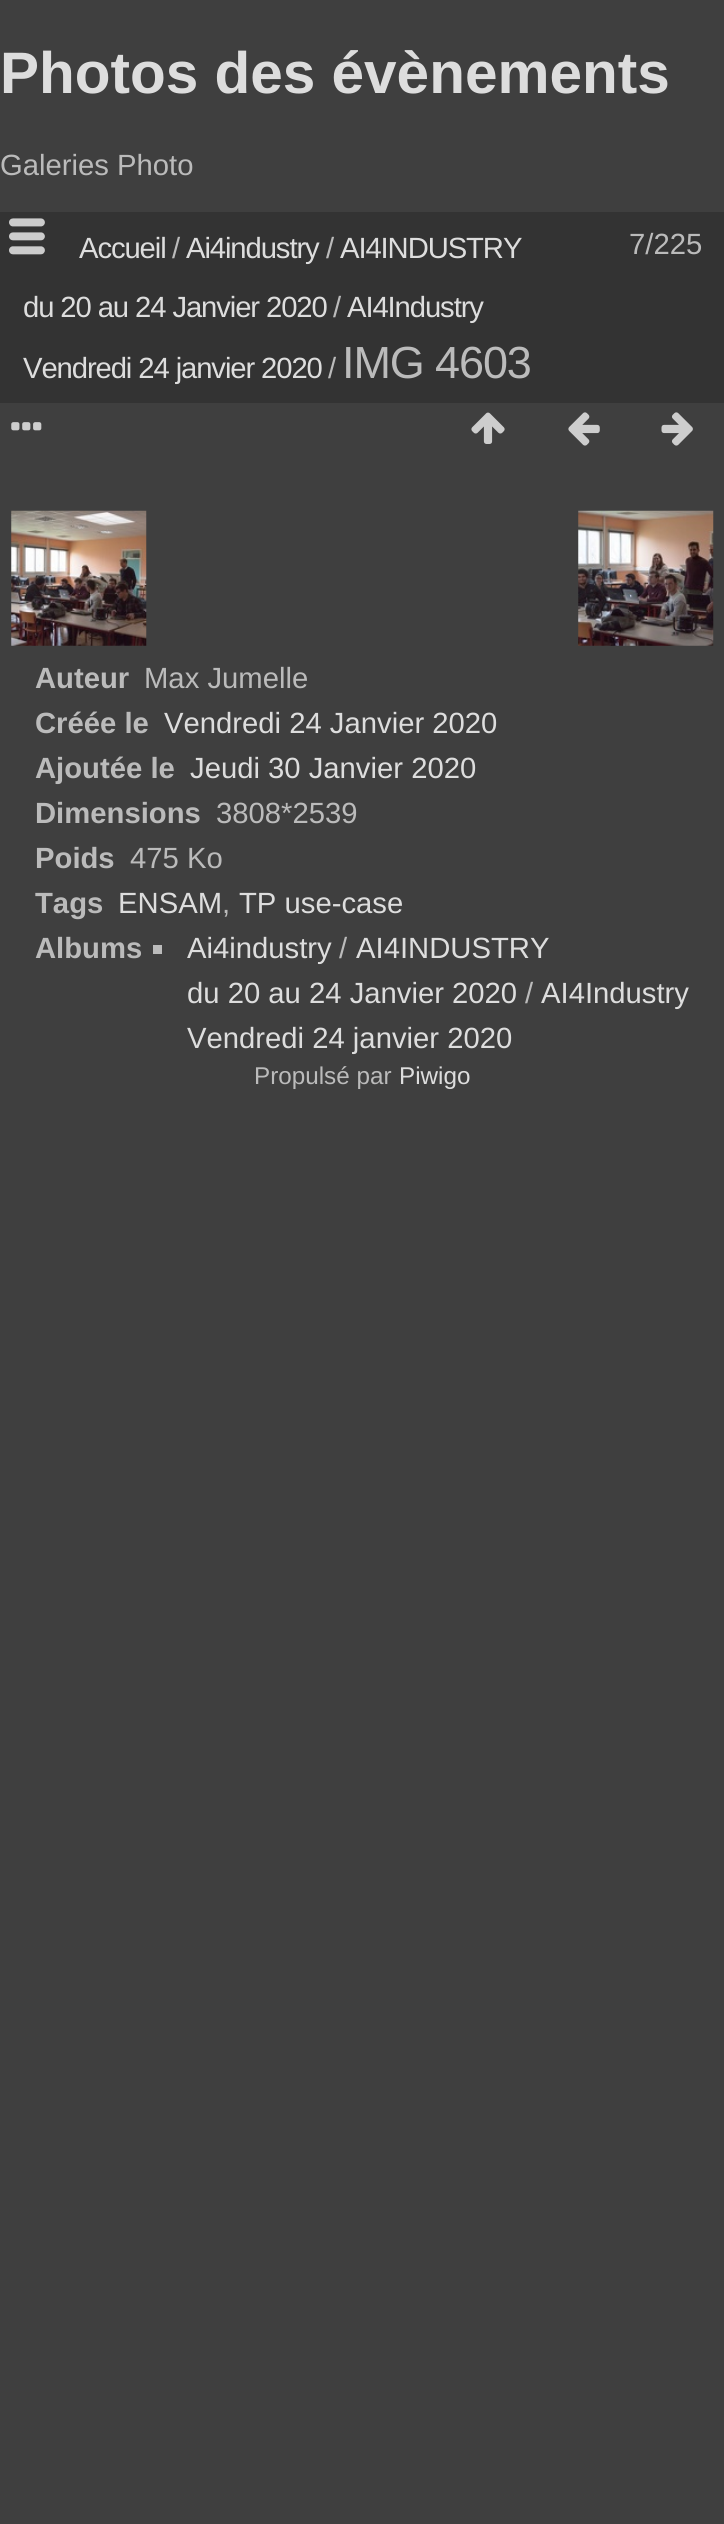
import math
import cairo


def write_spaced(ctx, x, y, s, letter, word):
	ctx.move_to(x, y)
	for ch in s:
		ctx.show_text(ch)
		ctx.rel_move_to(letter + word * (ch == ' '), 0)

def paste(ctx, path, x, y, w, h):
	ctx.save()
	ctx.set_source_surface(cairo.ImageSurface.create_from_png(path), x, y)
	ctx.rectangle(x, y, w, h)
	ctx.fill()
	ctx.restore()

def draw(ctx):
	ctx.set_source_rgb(0.247, 0.247, 0.247)
	ctx.paint()
	ctx.select_font_face('Liberation Sans', cairo.FONT_SLANT_NORMAL, cairo.FONT_WEIGHT_BOLD)
	ctx.set_font_size(58.5)
	ctx.set_source_rgb(0.867, 0.867, 0.867)
	ctx.move_to(0, 93)
	ctx.show_text('Photos des évènements')
	ctx.select_font_face('Liberation Sans')
	ctx.set_font_size(29.25)
	ctx.set_source_rgb(0.733, 0.733, 0.733)
	ctx.move_to(0, 175)
	ctx.show_text('Galeries Photo')
	ctx.set_source_rgb(0.2, 0.2, 0.2)
	ctx.rectangle(0, 212, 724, 191)
	ctx.fill()
	paste(ctx, 'media/1.png', 9, 218, 36, 37)
	ctx.set_source_rgb(0.867, 0.867, 0.867)
	write_spaced(ctx, 79, 258, 'Accueil', -1.1, 0)
	ctx.set_source_rgb(0.733, 0.733, 0.733)
	write_spaced(ctx, 172, 258, '/', -1.1, 0)
	ctx.set_source_rgb(0.867, 0.867, 0.867)
	write_spaced(ctx, 186, 258, 'Ai4industry', -1.1, 0)
	ctx.set_source_rgb(0.733, 0.733, 0.733)
	write_spaced(ctx, 326, 258, '/', -1.1, 0)
	ctx.set_source_rgb(0.867, 0.867, 0.867)
	write_spaced(ctx, 340, 258, 'AI4INDUSTRY', -1.1, 0)
	write_spaced(ctx, 23, 317, 'du 20 au 24 Janvier 2020', -1.1, 0)
	ctx.set_source_rgb(0.733, 0.733, 0.733)
	write_spaced(ctx, 333, 317, '/', -1.1, 0)
	ctx.set_source_rgb(0.867, 0.867, 0.867)
	write_spaced(ctx, 347, 317, 'AI4Industry', -1.1, 0)
	write_spaced(ctx, 23, 378, 'Vendredi 24 janvier 2020', -1.1, 0)
	ctx.set_source_rgb(0.733, 0.733, 0.733)
	write_spaced(ctx, 328, 378, '/', -1.1, 0)
	ctx.set_font_size(45)
	write_spaced(ctx, 342, 378, 'IMG 4603', -1.1, 0)
	ctx.set_font_size(29.25)
	ctx.move_to(629, 254)
	ctx.show_text('7/225')
	paste(ctx, 'media/2.png', 11, 422, 31, 9)
	paste(ctx, 'media/3.png', 471, 412, 34, 32)
	paste(ctx, 'media/4.png', 568, 412, 32, 34)
	paste(ctx, 'media/5.png', 661, 412, 32, 34)
	paste(ctx, 'media/6.png', 11, 510, 136, 136)
	paste(ctx, 'media/7.png', 578, 510, 136, 136)
	ctx.select_font_face('Liberation Sans', cairo.FONT_SLANT_NORMAL, cairo.FONT_WEIGHT_BOLD)
	ctx.move_to(35, 688)
	ctx.show_text('Auteur')
	ctx.select_font_face('Liberation Sans')
	ctx.move_to(144, 688)
	ctx.show_text('Max Jumelle')
	ctx.select_font_face('Liberation Sans', cairo.FONT_SLANT_NORMAL, cairo.FONT_WEIGHT_BOLD)
	ctx.move_to(35, 733)
	ctx.show_text('Créée le')
	ctx.select_font_face('Liberation Sans')
	ctx.set_source_rgb(0.867, 0.867, 0.867)
	ctx.move_to(164, 733)
	ctx.show_text('Vendredi 24 Janvier 2020')
	ctx.select_font_face('Liberation Sans', cairo.FONT_SLANT_NORMAL, cairo.FONT_WEIGHT_BOLD)
	ctx.set_source_rgb(0.733, 0.733, 0.733)
	ctx.move_to(35, 778)
	ctx.show_text('Ajoutée le')
	ctx.select_font_face('Liberation Sans')
	ctx.set_source_rgb(0.867, 0.867, 0.867)
	ctx.move_to(190, 778)
	ctx.show_text('Jeudi 30 Janvier 2020')
	ctx.select_font_face('Liberation Sans', cairo.FONT_SLANT_NORMAL, cairo.FONT_WEIGHT_BOLD)
	ctx.set_source_rgb(0.733, 0.733, 0.733)
	ctx.move_to(35, 823)
	ctx.show_text('Dimensions')
	ctx.select_font_face('Liberation Sans')
	ctx.move_to(216, 823)
	ctx.show_text('3808*2539')
	ctx.select_font_face('Liberation Sans', cairo.FONT_SLANT_NORMAL, cairo.FONT_WEIGHT_BOLD)
	ctx.move_to(35, 868)
	ctx.show_text('Poids')
	ctx.select_font_face('Liberation Sans')
	ctx.move_to(130, 868)
	ctx.show_text('475 Ko')
	ctx.select_font_face('Liberation Sans', cairo.FONT_SLANT_NORMAL, cairo.FONT_WEIGHT_BOLD)
	ctx.move_to(35, 913)
	ctx.show_text('Tags')
	ctx.select_font_face('Liberation Sans')
	ctx.set_source_rgb(0.867, 0.867, 0.867)
	ctx.move_to(118, 913)
	ctx.show_text('ENSAM')
	ctx.set_source_rgb(0.733, 0.733, 0.733)
	ctx.move_to(222, 913)
	ctx.show_text(',')
	ctx.set_source_rgb(0.867, 0.867, 0.867)
	ctx.move_to(239, 913)
	ctx.show_text('TP use-case')
	ctx.select_font_face('Liberation Sans', cairo.FONT_SLANT_NORMAL, cairo.FONT_WEIGHT_BOLD)
	ctx.set_source_rgb(0.733, 0.733, 0.733)
	ctx.move_to(35, 958)
	ctx.show_text('Albums')
	ctx.rectangle(153, 945, 9, 9)
	ctx.fill()
	ctx.select_font_face('Liberation Sans')
	ctx.set_source_rgb(0.867, 0.867, 0.867)
	ctx.move_to(187, 958)
	ctx.show_text('Ai4industry')
	ctx.set_source_rgb(0.733, 0.733, 0.733)
	ctx.move_to(339, 958)
	ctx.show_text('/')
	ctx.set_source_rgb(0.867, 0.867, 0.867)
	ctx.move_to(356, 958)
	ctx.show_text('AI4INDUSTRY')
	ctx.move_to(187, 1003)
	ctx.show_text('du 20 au 24 Janvier 2020')
	ctx.set_source_rgb(0.733, 0.733, 0.733)
	ctx.move_to(525, 1003)
	ctx.show_text('/')
	ctx.set_source_rgb(0.867, 0.867, 0.867)
	ctx.move_to(541, 1003)
	ctx.show_text('AI4Industry')
	ctx.move_to(187, 1048)
	ctx.show_text('Vendredi 24 janvier 2020')
	ctx.set_font_size(24.25)
	ctx.set_source_rgb(0.733, 0.733, 0.733)
	ctx.move_to(254, 1084)
	ctx.show_text('Propulsé par')
	ctx.set_source_rgb(0.867, 0.867, 0.867)
	ctx.move_to(399, 1084)
	ctx.show_text('Piwigo')


surface = cairo.ImageSurface(cairo.FORMAT_RGB24, 724, 2524)
ctx = cairo.Context(surface)
options = cairo.FontOptions()
options.set_hint_metrics(cairo.HINT_METRICS_OFF)
options.set_hint_style(cairo.HINT_STYLE_NONE)
ctx.set_font_options(options)
ctx.set_miter_limit(4)
draw(ctx)
surface.write_to_png('image.png')
